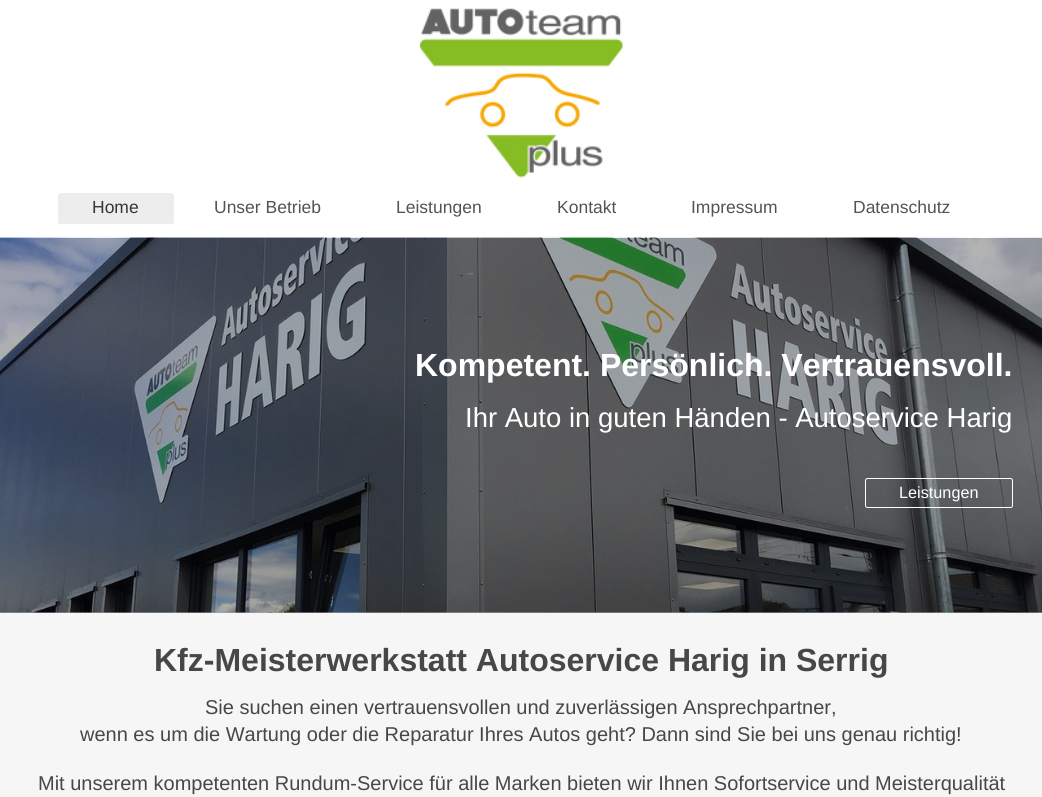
import math
import cairo


def round_path(ctx, x, y, w, h, r):
	ctx.new_sub_path()
	for i, (u, v) in enumerate([(x + w - r, y + h - r), (x + r, y + h - r), (x + r, y + r), (x + w - r, y + r)]):
		ctx.arc(u, v, r, i * math.pi / 2, (i + 1) * math.pi / 2)
	ctx.close_path()

def paste(ctx, path, x, y, w, h):
	ctx.save()
	ctx.set_source_surface(cairo.ImageSurface.create_from_png(path), x, y)
	ctx.rectangle(x, y, w, h)
	ctx.fill()
	ctx.restore()

def draw(ctx):
	ctx.set_source_rgb(1, 1, 1)
	ctx.paint()
	paste(ctx, 'media/1.png', 419, 8, 204, 170)
	ctx.set_source_rgb(0.929, 0.929, 0.929)
	round_path(ctx, 58, 193, 116, 31, 2.5)
	ctx.fill()
	ctx.rectangle(59, 223, 114, 1)
	ctx.fill()
	ctx.select_font_face('Liberation Sans')
	ctx.set_font_size(17.5)
	ctx.set_source_rgb(0.208, 0.208, 0.208)
	ctx.move_to(92, 213)
	ctx.show_text('Home')
	ctx.set_source_rgb(0.325, 0.325, 0.325)
	for x, y, s in [
		(214, 213, 'Unser Betrieb'),
		(396, 213, 'Leistungen'),
		(557, 213, 'Kontakt'),
		(691, 213, 'Impressum'),
		(853, 213, 'Datenschutz'),
	]:
		ctx.move_to(x, y)
		ctx.show_text(s)
	ctx.set_source_rgb(0.961, 0.961, 0.961)
	ctx.rectangle(0, 613, 1042, 184)
	ctx.fill()
	ctx.set_source_rgb(0.675, 0.675, 0.675)
	ctx.rectangle(0, 612, 1042, 1)
	ctx.fill()
	paste(ctx, 'media/2.png', 0, 237, 1042, 376)
	ctx.select_font_face('Liberation Sans', cairo.FONT_SLANT_NORMAL, cairo.FONT_WEIGHT_BOLD)
	ctx.set_font_size(32)
	ctx.set_source_rgb(1, 1, 1)
	ctx.move_to(415, 376)
	ctx.show_text('Kompetent. Persönlich. Vertrauensvoll.')
	ctx.select_font_face('Liberation Sans')
	ctx.set_font_size(27.5)
	ctx.move_to(465, 427)
	ctx.show_text('Ihr Auto in guten Händen - Autoservice Harig')
	round_path(ctx, 865.5, 478.5, 147, 29, 2)
	ctx.set_line_width(1)
	ctx.stroke()
	ctx.set_font_size(16.25)
	ctx.move_to(899, 498)
	ctx.show_text('Leistungen')
	ctx.select_font_face('Liberation Sans', cairo.FONT_SLANT_NORMAL, cairo.FONT_WEIGHT_BOLD)
	ctx.set_font_size(32)
	ctx.set_source_rgb(0.278, 0.278, 0.278)
	ctx.move_to(154, 671)
	ctx.show_text('Kfz-Meisterwerkstatt Autoservice Harig in Serrig')
	ctx.select_font_face('Liberation Sans')
	ctx.set_font_size(20)
	for x, y, s in [
		(205, 714, 'Sie suchen einen vertrauensvollen und zuverlässigen Ansprechpartner,'),
		(80, 741, 'wenn es um die Wartung oder die Reparatur Ihres Autos geht? Dann sind Sie bei uns genau richtig!'),
		(38, 790, 'Mit unserem kompetenten Rundum-Service für alle Marken bieten wir Ihnen Sofortservice und Meisterqualität'),
	]:
		ctx.move_to(x, y)
		ctx.show_text(s)


surface = cairo.ImageSurface(cairo.FORMAT_RGB24, 1042, 797)
ctx = cairo.Context(surface)
options = cairo.FontOptions()
options.set_hint_metrics(cairo.HINT_METRICS_OFF)
options.set_hint_style(cairo.HINT_STYLE_NONE)
ctx.set_font_options(options)
ctx.set_miter_limit(4)
draw(ctx)
surface.write_to_png('image.png')
